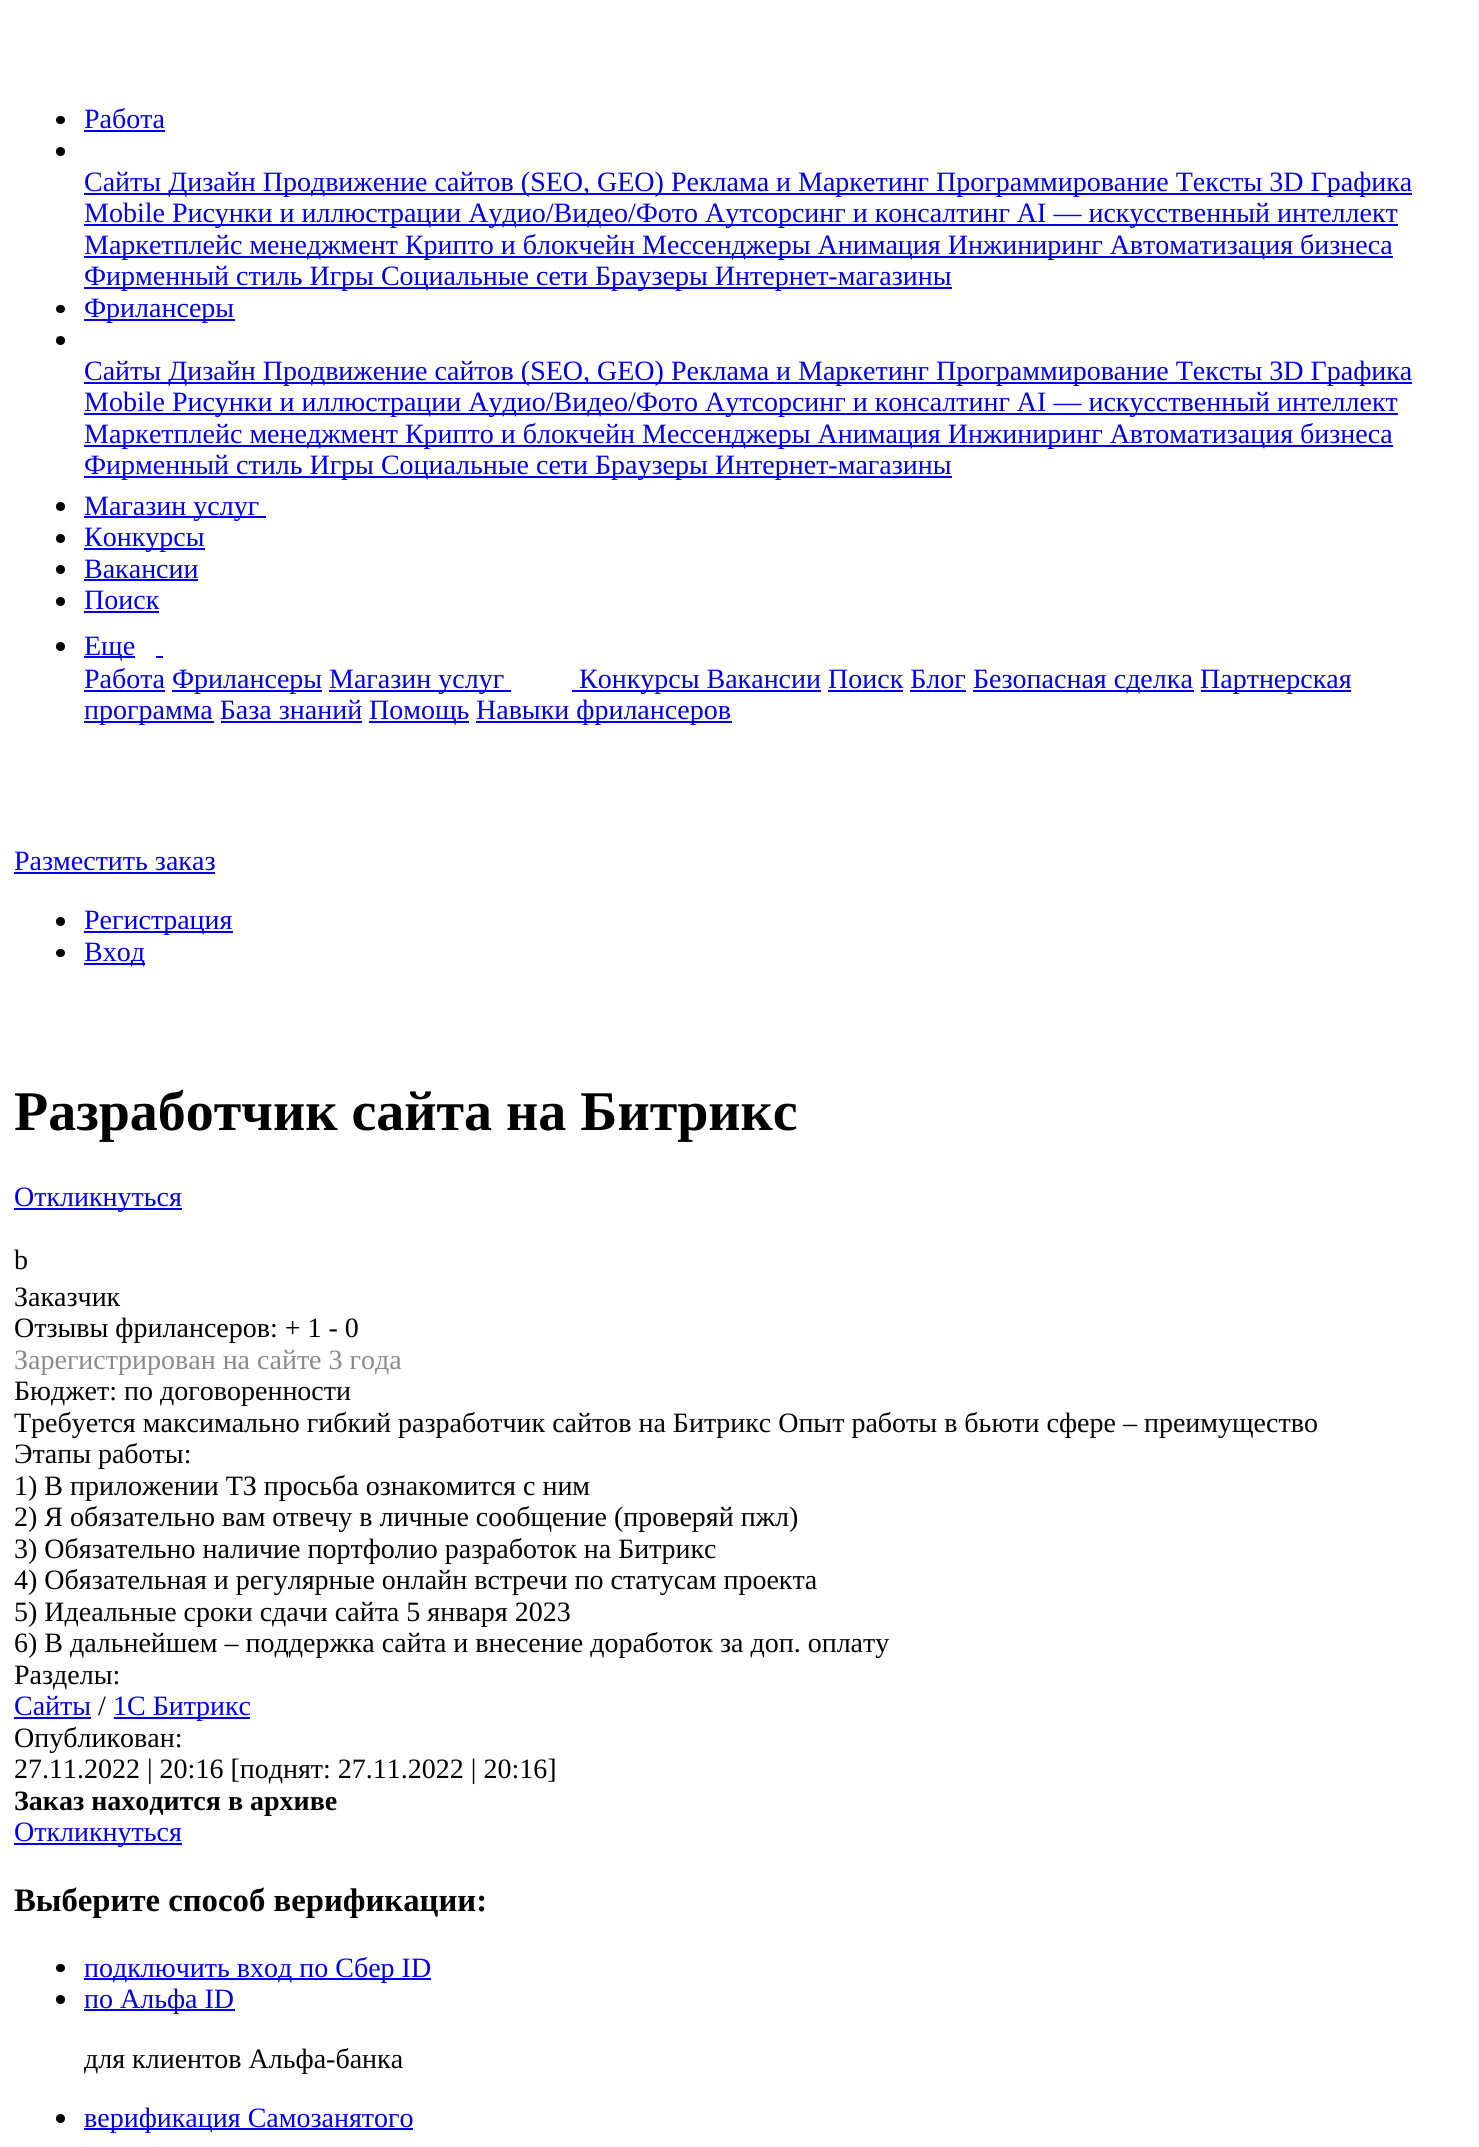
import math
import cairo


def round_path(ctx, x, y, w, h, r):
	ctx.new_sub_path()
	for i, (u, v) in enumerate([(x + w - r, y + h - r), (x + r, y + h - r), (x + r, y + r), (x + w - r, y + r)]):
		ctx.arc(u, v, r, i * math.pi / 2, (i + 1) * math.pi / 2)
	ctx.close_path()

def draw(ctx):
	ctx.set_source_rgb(1, 1, 1)
	ctx.paint()
	ctx.set_source_rgb(0, 0, 0)
	round_path(ctx, 56, 116, 9, 8, 4)
	ctx.fill()
	ctx.select_font_face('Liberation Serif')
	ctx.set_font_size(28)
	ctx.set_source_rgb(0, 0, 0.933)
	ctx.move_to(84, 128)
	ctx.show_text('Работа')
	ctx.rectangle(84, 130, 81, 2)
	ctx.fill()
	ctx.set_source_rgb(0, 0, 0)
	ctx.arc(60.5, 151.5, 4.5, 0, 2 * math.pi)
	ctx.fill()
	ctx.set_source_rgb(0, 0, 0.933)
	ctx.rectangle(84, 193, 1328, 2)
	ctx.fill()
	ctx.move_to(84, 191)
	ctx.show_text('Сайты Дизайн Продвижение сайтов (SEO, GEO) Реклама и Маркетинг Программирование Тексты 3D Графика')
	ctx.rectangle(84, 224, 1314, 2)
	ctx.fill()
	ctx.move_to(84, 222)
	ctx.show_text('Mobile Рисунки и иллюстрации Аудио/Видео/Фото Аутсорсинг и консалтинг AI — искусственный интеллект')
	ctx.rectangle(84, 256, 1309, 2)
	ctx.fill()
	ctx.move_to(84, 254)
	ctx.show_text('Маркетплейс менеджмент Крипто и блокчейн Мессенджеры Анимация Инжиниринг Автоматизация бизнеса')
	ctx.rectangle(84, 287, 868, 2)
	ctx.fill()
	ctx.move_to(84, 285)
	ctx.show_text('Фирменный стиль Игры Социальные сети Браузеры Интернет-магазины')
	ctx.set_source_rgb(0, 0, 0)
	round_path(ctx, 56, 305, 9, 8, 4)
	ctx.fill()
	ctx.set_source_rgb(0, 0, 0.933)
	ctx.rectangle(84, 319, 151, 2)
	ctx.fill()
	ctx.move_to(84, 317)
	ctx.show_text('Фрилансеры')
	ctx.set_source_rgb(0, 0, 0)
	ctx.new_path()
	ctx.arc(60.5, 340.5, 4.5, 0, 2 * math.pi)
	ctx.fill()
	ctx.set_source_rgb(0, 0, 0.933)
	ctx.rectangle(84, 382, 1328, 2)
	ctx.fill()
	ctx.move_to(84, 380)
	ctx.show_text('Сайты Дизайн Продвижение сайтов (SEO, GEO) Реклама и Маркетинг Программирование Тексты 3D Графика')
	ctx.rectangle(84, 413, 1314, 2)
	ctx.fill()
	ctx.move_to(84, 411)
	ctx.show_text('Mobile Рисунки и иллюстрации Аудио/Видео/Фото Аутсорсинг и консалтинг AI — искусственный интеллект')
	ctx.rectangle(84, 445, 1309, 2)
	ctx.fill()
	ctx.move_to(84, 443)
	ctx.show_text('Маркетплейс менеджмент Крипто и блокчейн Мессенджеры Анимация Инжиниринг Автоматизация бизнеса')
	ctx.rectangle(84, 476, 868, 2)
	ctx.fill()
	ctx.move_to(84, 474)
	ctx.show_text('Фирменный стиль Игры Социальные сети Браузеры Интернет-магазины')
	ctx.set_source_rgb(0, 0, 0)
	ctx.new_path()
	ctx.arc(60.5, 506.5, 4.5, 0, 2 * math.pi)
	ctx.fill()
	ctx.set_source_rgb(0, 0, 0.933)
	ctx.rectangle(84, 516, 182, 2)
	ctx.fill()
	ctx.move_to(84, 515)
	ctx.show_text('Магазин услуг')
	ctx.set_source_rgb(0, 0, 0)
	ctx.new_path()
	ctx.arc(60.5, 538.5, 4.5, 0, 2 * math.pi)
	ctx.fill()
	ctx.set_source_rgb(0, 0, 0.933)
	ctx.rectangle(84, 548, 121, 2)
	ctx.fill()
	ctx.move_to(84, 546)
	ctx.show_text('Конкурсы')
	ctx.set_source_rgb(0, 0, 0)
	ctx.new_path()
	ctx.arc(60.5, 569.5, 4.5, 0, 2 * math.pi)
	ctx.fill()
	ctx.set_source_rgb(0, 0, 0.933)
	ctx.move_to(84, 578)
	ctx.show_text('Вакансии')
	ctx.rectangle(84, 579, 114, 2)
	ctx.fill()
	ctx.set_source_rgb(0, 0, 0)
	ctx.arc(60.5, 601.5, 4.5, 0, 2 * math.pi)
	ctx.fill()
	ctx.set_source_rgb(0, 0, 0.933)
	ctx.move_to(84, 609)
	ctx.show_text('Поиск')
	ctx.rectangle(84, 611, 75, 2)
	ctx.fill()
	ctx.set_source_rgb(0, 0, 0)
	ctx.arc(60.5, 646.5, 4.5, 0, 2 * math.pi)
	ctx.fill()
	ctx.set_source_rgb(0, 0, 0.933)
	ctx.rectangle(84, 656, 51, 2)
	ctx.fill()
	ctx.move_to(84, 655)
	ctx.show_text('Еще')
	ctx.rectangle(156, 656, 7, 2)
	ctx.fill()
	ctx.move_to(84, 688)
	ctx.show_text('Работа')
	ctx.rectangle(84, 690, 81, 2)
	ctx.fill()
	ctx.rectangle(172, 690, 150, 2)
	ctx.fill()
	ctx.move_to(172, 688)
	ctx.show_text('Фрилансеры')
	ctx.rectangle(329, 690, 182, 2)
	ctx.fill()
	ctx.move_to(329, 688)
	ctx.show_text('Магазин услуг')
	ctx.rectangle(572, 690, 249, 2)
	ctx.fill()
	ctx.move_to(579, 688)
	ctx.show_text('Конкурсы Вакансии Поиск Блог')
	ctx.rectangle(973, 690, 221, 2)
	ctx.fill()
	ctx.move_to(973, 688)
	ctx.show_text('Безопасная сделка')
	ctx.rectangle(1201, 690, 150, 2)
	ctx.fill()
	ctx.move_to(1200, 688)
	ctx.show_text('Партнерская')
	ctx.rectangle(828, 690, 75, 2)
	ctx.rectangle(910, 690, 56, 2)
	ctx.rectangle(84, 721, 130, 2)
	ctx.fill()
	ctx.move_to(84, 719)
	ctx.show_text('программа База знаний')
	ctx.rectangle(369, 721, 100, 2)
	ctx.fill()
	ctx.move_to(369, 719)
	ctx.show_text('Помощь')
	ctx.rectangle(476, 721, 256, 2)
	ctx.fill()
	ctx.move_to(476, 719)
	ctx.show_text('Навыки фрилансеров')
	ctx.rectangle(221, 721, 141, 2)
	ctx.fill()
	ctx.move_to(14, 870)
	ctx.show_text('Разместить заказ')
	ctx.rectangle(14, 872, 201, 2)
	ctx.fill()
	ctx.set_source_rgb(0, 0, 0)
	ctx.arc(60.5, 921.5, 4.5, 0, 2 * math.pi)
	ctx.fill()
	ctx.set_source_rgb(0, 0, 0.933)
	ctx.rectangle(84, 931, 149, 2)
	ctx.fill()
	ctx.move_to(84, 929)
	ctx.show_text('Регистрация')
	ctx.set_source_rgb(0, 0, 0)
	round_path(ctx, 56, 949, 9, 8, 4)
	ctx.fill()
	ctx.set_source_rgb(0, 0, 0.933)
	ctx.rectangle(84, 963, 61, 2)
	ctx.fill()
	ctx.move_to(84, 961)
	ctx.show_text('Вход')
	ctx.select_font_face('Liberation Serif', cairo.FONT_SLANT_NORMAL, cairo.FONT_WEIGHT_BOLD)
	ctx.set_font_size(56)
	ctx.set_source_rgb(0, 0, 0)
	ctx.move_to(14, 1130)
	ctx.show_text('Разработчик сайта на Битрикс')
	ctx.set_source_rgb(0, 0, 0.933)
	ctx.rectangle(14, 1208, 168, 2)
	ctx.fill()
	ctx.select_font_face('Liberation Serif')
	ctx.set_font_size(28)
	ctx.move_to(14, 1206)
	ctx.show_text('Откликнуться')
	ctx.set_source_rgb(0, 0, 0)
	for x, y, s in [
		(14, 1269, 'b'),
		(14, 1306, 'Заказчик'),
		(14, 1337, 'Отзывы фрилансеров: + 1 - 0'),
	]:
		ctx.move_to(x, y)
		ctx.show_text(s)
	ctx.set_source_rgb(0.541, 0.541, 0.541)
	ctx.move_to(14, 1369)
	ctx.show_text('Зарегистрирован на сайте 3 года')
	ctx.set_source_rgb(0, 0, 0)
	for x, y, s in [
		(14, 1400, 'Бюджет: по договоренности'),
		(14, 1432, 'Требуется максимально гибкий разработчик сайтов на Битрикс Опыт работы в бьюти сфере – преимущество'),
		(14, 1463, 'Этапы работы:'),
		(14, 1495, '1) В приложении ТЗ просьба ознакомится с ним'),
		(14, 1526, '2) Я обязательно вам отвечу в личные сообщение (проверяй пжл)'),
		(14, 1558, '3) Обязательно наличие портфолио разработок на Битрикс'),
		(14, 1589, '4) Обязательная и регулярные онлайн встречи по статусам проекта'),
		(14, 1621, '5) Идеальные сроки сдачи сайта 5 января 2023'),
		(14, 1652, '6) В дальнейшем – поддержка сайта и внесение доработок за доп. оплату'),
		(14, 1684, 'Разделы:'),
	]:
		ctx.move_to(x, y)
		ctx.show_text(s)
	ctx.set_source_rgb(0, 0, 0.933)
	ctx.move_to(14, 1715)
	ctx.show_text('Сайты')
	ctx.rectangle(14, 1717, 77, 2)
	ctx.fill()
	ctx.set_source_rgb(0, 0, 0)
	ctx.move_to(98, 1715)
	ctx.show_text('/')
	ctx.set_source_rgb(0, 0, 0.933)
	ctx.rectangle(114, 1717, 136, 2)
	ctx.fill()
	ctx.move_to(113, 1715)
	ctx.show_text('1С Битрикс')
	ctx.set_source_rgb(0, 0, 0)
	ctx.move_to(14, 1747)
	ctx.show_text('Опубликован:')
	ctx.move_to(14, 1778)
	ctx.show_text('27.11.2022 | 20:16 [поднят: 27.11.2022 | 20:16]')
	ctx.select_font_face('Liberation Serif', cairo.FONT_SLANT_NORMAL, cairo.FONT_WEIGHT_BOLD)
	ctx.move_to(14, 1810)
	ctx.show_text('Заказ находится в архиве')
	ctx.set_source_rgb(0, 0, 0.933)
	ctx.rectangle(14, 1843, 168, 2)
	ctx.fill()
	ctx.select_font_face('Liberation Serif')
	ctx.move_to(14, 1841)
	ctx.show_text('Откликнуться')
	ctx.select_font_face('Liberation Serif', cairo.FONT_SLANT_NORMAL, cairo.FONT_WEIGHT_BOLD)
	ctx.set_font_size(32.75)
	ctx.set_source_rgb(0, 0, 0)
	ctx.move_to(14, 1911)
	ctx.show_text('Выберите способ верификации:')
	round_path(ctx, 56, 1964, 9, 8, 4)
	ctx.fill()
	ctx.set_source_rgb(0, 0, 0.933)
	ctx.rectangle(84, 1978, 347, 2)
	ctx.fill()
	ctx.select_font_face('Liberation Serif')
	ctx.set_font_size(28)
	ctx.move_to(84, 1977)
	ctx.show_text('подключить вход по Сбер ID')
	ctx.set_source_rgb(0, 0, 0)
	ctx.new_path()
	ctx.arc(60.5, 1999.5, 4.5, 0, 2 * math.pi)
	ctx.fill()
	ctx.set_source_rgb(0, 0, 0.933)
	ctx.rectangle(84, 2009, 151, 2)
	ctx.fill()
	ctx.move_to(84, 2008)
	ctx.show_text('по Альфа ID')
	ctx.set_source_rgb(0, 0, 0)
	ctx.move_to(84, 2068)
	ctx.show_text('для клиентов Альфа-банка')
	ctx.new_path()
	ctx.arc(60.5, 2118.5, 4.5, 0, 2 * math.pi)
	ctx.fill()
	ctx.set_source_rgb(0, 0, 0.933)
	ctx.rectangle(84, 2128, 329, 2)
	ctx.fill()
	ctx.move_to(84, 2127)
	ctx.show_text('верификация Самозанятого')


surface = cairo.ImageSurface(cairo.FORMAT_RGB24, 1479, 2147)
ctx = cairo.Context(surface)
options = cairo.FontOptions()
options.set_hint_metrics(cairo.HINT_METRICS_OFF)
options.set_hint_style(cairo.HINT_STYLE_NONE)
ctx.set_font_options(options)
ctx.set_miter_limit(4)
draw(ctx)
surface.write_to_png('image.png')
